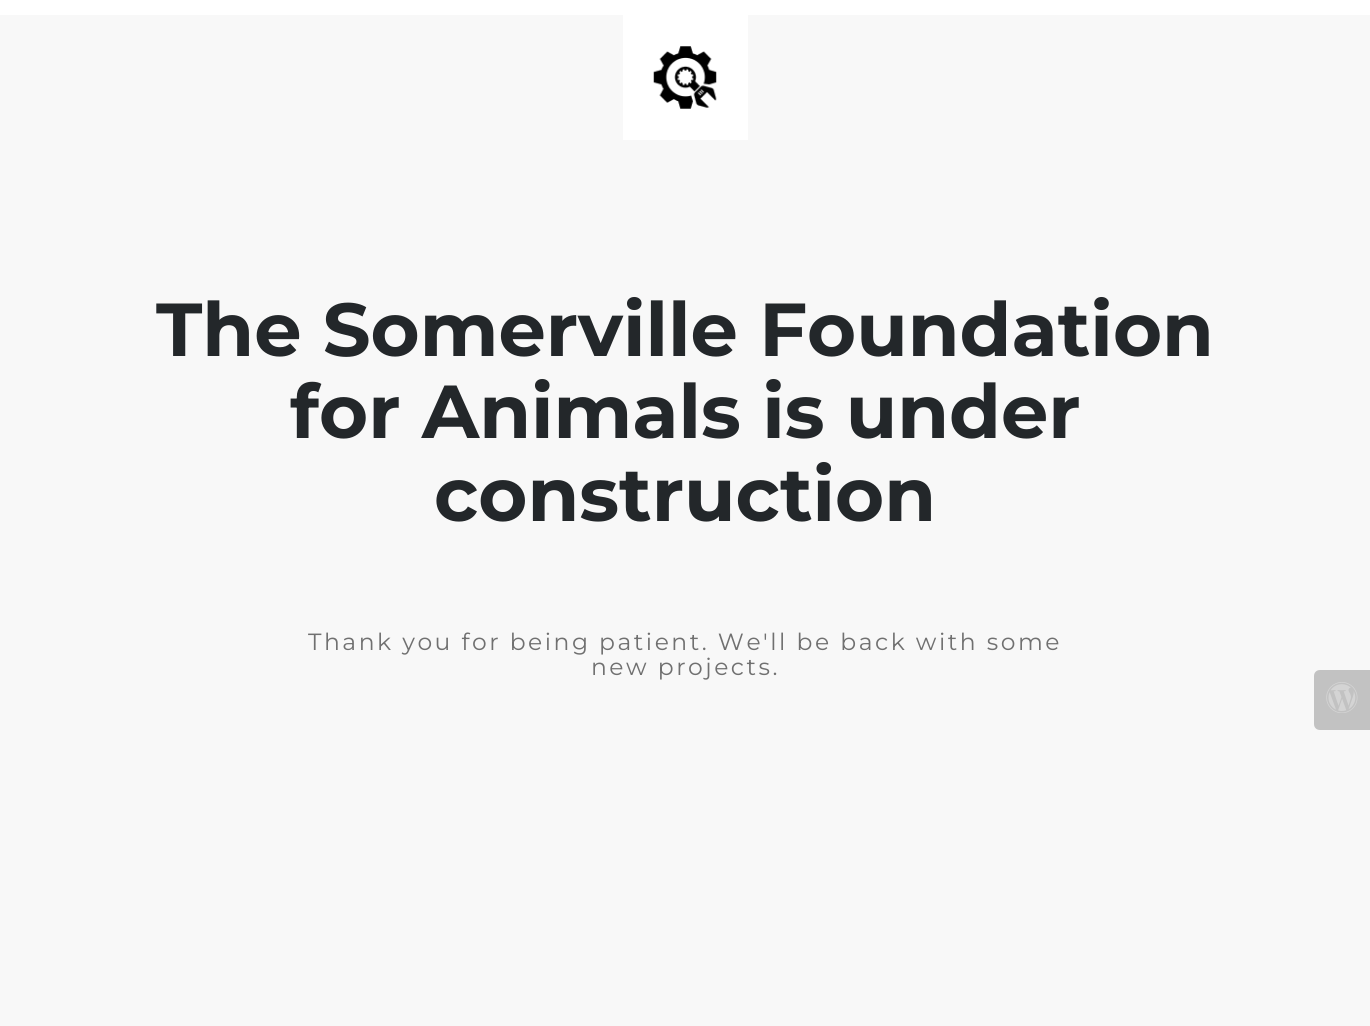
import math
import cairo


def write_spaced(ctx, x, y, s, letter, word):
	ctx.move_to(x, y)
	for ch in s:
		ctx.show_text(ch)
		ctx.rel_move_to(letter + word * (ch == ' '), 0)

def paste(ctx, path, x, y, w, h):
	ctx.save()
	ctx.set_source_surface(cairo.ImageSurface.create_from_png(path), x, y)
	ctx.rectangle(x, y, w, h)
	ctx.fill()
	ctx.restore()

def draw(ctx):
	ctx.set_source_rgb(0.969, 0.969, 0.969)
	ctx.paint()
	ctx.set_source_rgb(1, 1, 1)
	ctx.rectangle(0, 0, 1370, 15)
	ctx.fill()
	ctx.rectangle(623, 15, 125, 125)
	ctx.fill()
	paste(ctx, 'media/1.png', 653, 46, 64, 63)
	ctx.select_font_face('Montserrat Thin')
	ctx.set_font_size(75)
	ctx.set_source_rgb(0.137, 0.153, 0.165)
	for x, y, s in [
		(156, 356, 'The Somerville Foundation'),
		(290, 438, 'for Animals is under'),
		(434, 521, 'construction'),
	]:
		ctx.move_to(x, y)
		ctx.show_text(s)
	ctx.select_font_face('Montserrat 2 Thin')
	ctx.set_font_size(23.45)
	ctx.set_source_rgb(0.439, 0.439, 0.439)
	write_spaced(ctx, 308, 650, 'Thank you for being patient. We\'ll be back with some', 2.5, 0)
	write_spaced(ctx, 591, 675, 'new projects.', 2.5, 0)
	ctx.set_source_rgb(0.761, 0.761, 0.761)
	ctx.new_path()
	ctx.move_to(1320, 670)
	ctx.line_to(1370, 670)
	ctx.line_to(1370, 730)
	ctx.line_to(1320, 730)
	ctx.curve_to(1316.5, 730, 1314, 727.5, 1314, 724)
	ctx.line_to(1314, 676)
	ctx.curve_to(1314, 672.5, 1316.5, 670, 1320, 670)
	ctx.close_path()
	ctx.fill()
	paste(ctx, 'media/2.png', 1326, 682, 32, 31)


surface = cairo.ImageSurface(cairo.FORMAT_RGB24, 1370, 1026)
ctx = cairo.Context(surface)
options = cairo.FontOptions()
options.set_hint_metrics(cairo.HINT_METRICS_OFF)
options.set_hint_style(cairo.HINT_STYLE_NONE)
ctx.set_font_options(options)
ctx.set_miter_limit(4)
draw(ctx)
surface.write_to_png('image.png')
